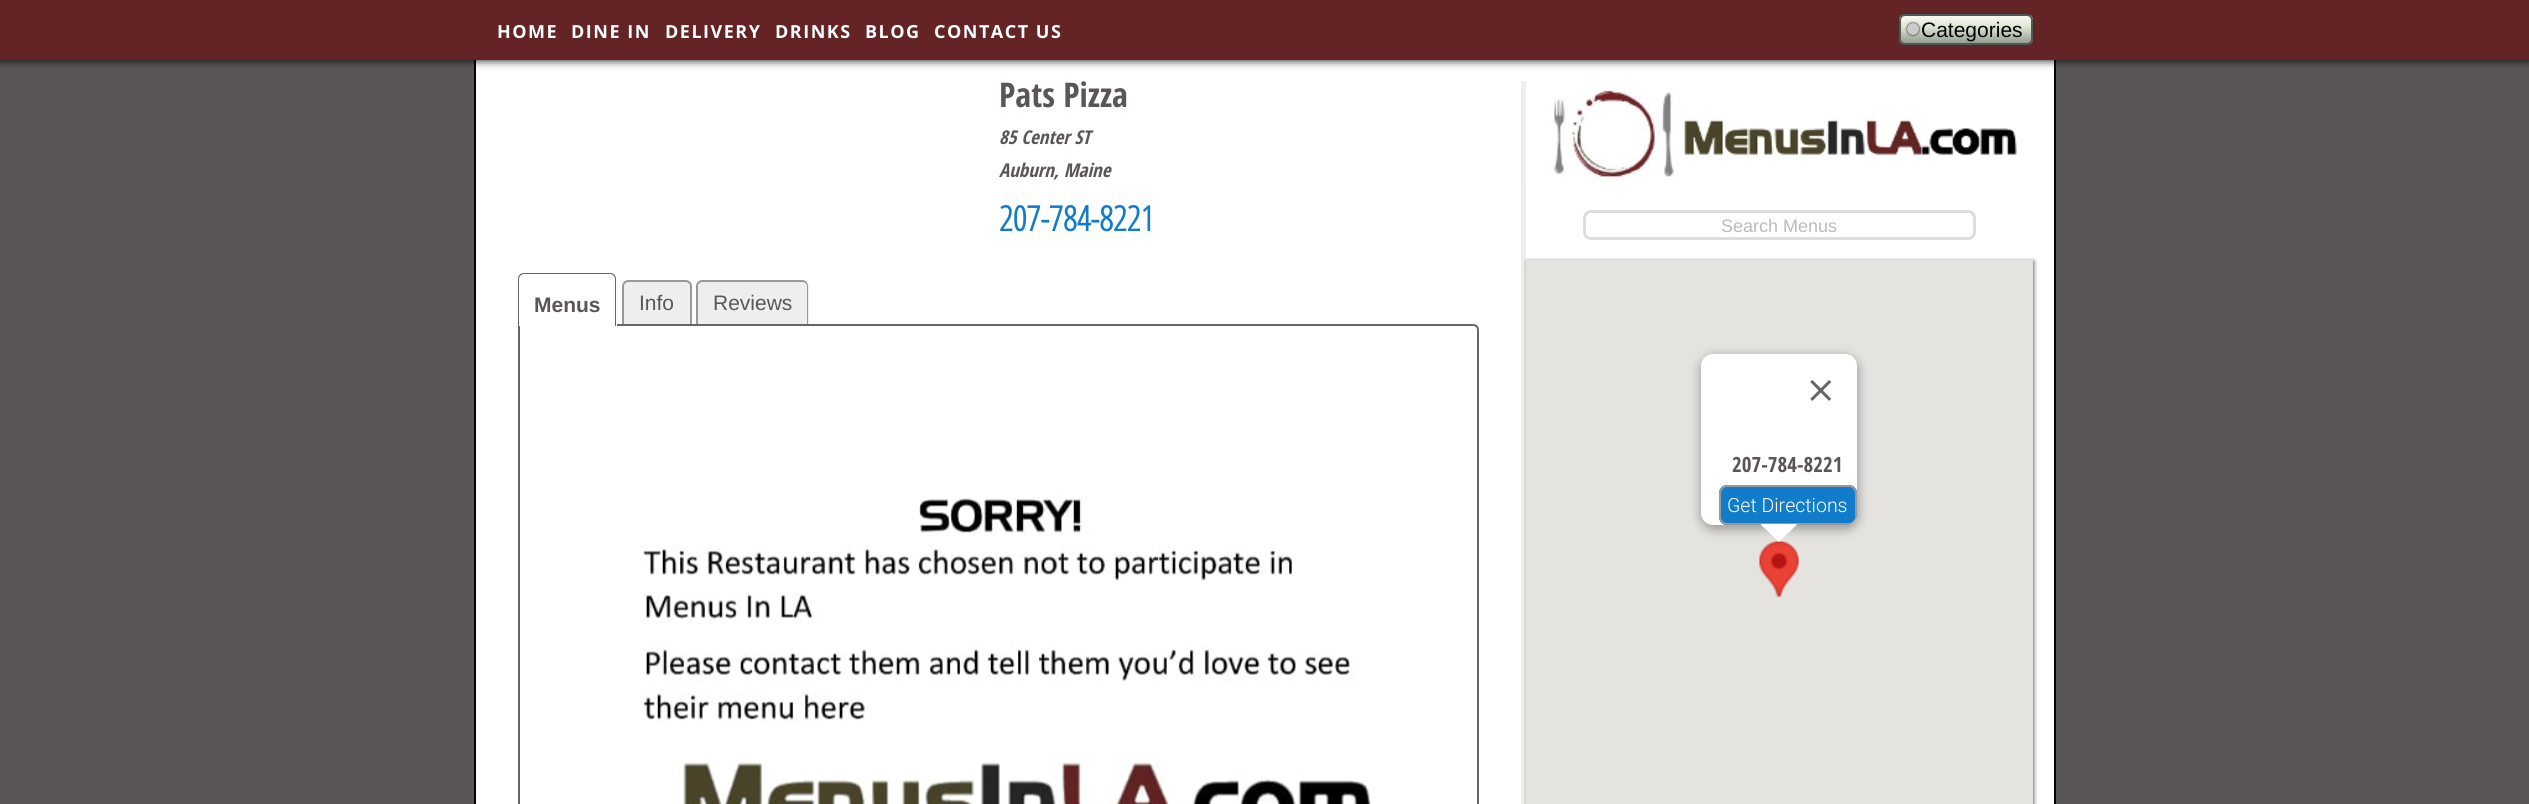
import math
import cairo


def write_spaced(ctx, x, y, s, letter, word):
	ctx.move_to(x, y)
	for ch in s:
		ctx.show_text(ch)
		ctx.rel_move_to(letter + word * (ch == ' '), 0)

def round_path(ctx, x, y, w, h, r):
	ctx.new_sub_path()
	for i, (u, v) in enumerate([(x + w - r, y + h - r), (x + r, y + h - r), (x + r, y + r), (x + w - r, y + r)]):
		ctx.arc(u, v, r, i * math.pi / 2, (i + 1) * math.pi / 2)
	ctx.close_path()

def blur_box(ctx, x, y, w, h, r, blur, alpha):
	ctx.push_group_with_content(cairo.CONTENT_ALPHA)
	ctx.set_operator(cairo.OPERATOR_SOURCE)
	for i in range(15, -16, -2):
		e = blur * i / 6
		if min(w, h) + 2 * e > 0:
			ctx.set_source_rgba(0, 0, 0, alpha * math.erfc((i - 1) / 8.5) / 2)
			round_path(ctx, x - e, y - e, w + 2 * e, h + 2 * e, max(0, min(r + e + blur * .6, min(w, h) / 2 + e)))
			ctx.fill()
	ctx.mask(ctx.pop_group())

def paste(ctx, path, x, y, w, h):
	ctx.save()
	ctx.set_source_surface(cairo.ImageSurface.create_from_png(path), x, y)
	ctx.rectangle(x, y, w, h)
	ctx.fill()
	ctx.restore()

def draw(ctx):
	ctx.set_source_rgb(0.353, 0.337, 0.337)
	ctx.paint()
	ctx.set_source_rgb(1, 1, 1)
	ctx.rectangle(476, 60, 1578, 744)
	ctx.fill()
	ctx.set_source_rgb(0, 0, 0)
	ctx.rectangle(2054, 60, 2, 744)
	ctx.rectangle(474, 60, 2, 744)
	ctx.fill()
	ctx.set_source_rgb(0, 0, 0)
	blur_box(ctx, 0, 0, 2529, 60, 0, 4.5, 1)
	ctx.set_source_rgb(0.392, 0.141, 0.145)
	ctx.rectangle(0, 0, 2529, 60)
	ctx.fill()
	ctx.select_font_face('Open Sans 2', cairo.FONT_SLANT_NORMAL, cairo.FONT_WEIGHT_BOLD)
	ctx.set_font_size(18)
	ctx.set_source_rgb(1, 1, 1)
	for x, y, s in [
		(497, 38, 'HOME'),
		(571, 38, 'DINE IN'),
		(665, 38, 'DELIVERY'),
		(775, 38, 'DRINKS'),
		(865, 38, 'BLOG'),
		(934, 38, 'CONTACT US'),
	]:
		write_spaced(ctx, x, y, s, 1.5, 0)
	ctx.set_source_rgb(0.2, 0.2, 0.2)
	blur_box(ctx, 1899, 14, 134, 31, 6, 2, 1)
	ctx.save()
	round_path(ctx, 1899, 14, 134, 31, 6)
	ctx.clip()
	gradient = cairo.LinearGradient(1966, 15, 1966, 44)
	gradient.add_color_stop_rgba(0, 0.988, 0.98, 0.949, 1)
	gradient.add_color_stop_rgba(0.4, 0.875, 0.898, 0.843, 1)
	gradient.add_color_stop_rgba(1, 0.565, 0.6, 0.549, 1)
	ctx.set_source(gradient)
	ctx.rectangle(1899, 15, 134, 29)
	ctx.fill()
	ctx.restore()
	round_path(ctx, 1900, 15, 132, 29, 5)
	ctx.set_source_rgb(0.333, 0.333, 0.333)
	ctx.stroke()
	ctx.set_source_rgb(0, 0, 0)
	blur_box(ctx, 1907, 23, 12, 12, 6, 1, 1)
	ctx.set_source_rgb(0.8, 0.8, 0.8)
	ctx.arc(1913, 29, 6, 0, 2 * math.pi)
	ctx.fill()
	ctx.select_font_face('Liberation Sans')
	ctx.set_font_size(21)
	ctx.set_source_rgb(0, 0, 0)
	ctx.move_to(1921, 37)
	ctx.show_text('Categories')
	ctx.select_font_face('Open Sans Condensed', cairo.FONT_SLANT_NORMAL, cairo.FONT_WEIGHT_BOLD)
	ctx.set_font_size(34)
	ctx.set_source_rgb(0.353, 0.337, 0.337)
	ctx.move_to(999, 107)
	ctx.show_text('Pats Pizza')
	ctx.select_font_face('Open Sans Condensed', cairo.FONT_SLANT_ITALIC, cairo.FONT_WEIGHT_BOLD)
	ctx.set_font_size(19)
	ctx.move_to(999, 144)
	ctx.show_text('85 Center ST')
	ctx.move_to(999, 177)
	ctx.show_text('Auburn, Maine')
	ctx.select_font_face('Open Sans', cairo.FONT_SLANT_NORMAL, cairo.FONT_WEIGHT_BOLD)
	ctx.set_font_size(34.5)
	ctx.set_source_rgb(0.067, 0.49, 0.792)
	ctx.move_to(999, 231)
	ctx.show_text('207-784-8221')
	ctx.new_path()
	ctx.move_to(519, 325)
	ctx.line_to(1473, 325)
	ctx.curve_to(1476, 325, 1478, 327, 1478, 330)
	ctx.line_to(1478, 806)
	ctx.curve_to(1478, 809, 1476, 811, 1473, 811)
	ctx.line_to(524, 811)
	ctx.curve_to(521, 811, 519, 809, 519, 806)
	ctx.close_path()
	ctx.set_source_rgb(0.4, 0.4, 0.4)
	ctx.stroke()
	ctx.set_source_rgb(1, 1, 1)
	ctx.new_path()
	ctx.move_to(524, 273)
	ctx.line_to(611, 273)
	ctx.curve_to(614.5, 273, 617, 275.5, 617, 279)
	ctx.line_to(617, 326)
	ctx.line_to(518, 326)
	ctx.line_to(518, 279)
	ctx.curve_to(518, 275.5, 520.5, 273, 524, 273)
	ctx.close_path()
	ctx.fill()
	ctx.set_source_rgb(0.4, 0.4, 0.4)
	ctx.set_fill_rule(cairo.FILL_RULE_EVEN_ODD)
	ctx.new_path()
	ctx.move_to(524, 273)
	ctx.line_to(610, 273)
	ctx.curve_to(614, 273, 616, 276, 616, 279)
	ctx.line_to(616, 326)
	ctx.line_to(518, 326)
	ctx.line_to(518, 279)
	ctx.curve_to(518, 276, 520, 273, 524, 273)
	ctx.close_path()
	ctx.move_to(524, 274)
	ctx.line_to(610, 274)
	ctx.curve_to(613, 274, 615, 277, 615, 279)
	ctx.line_to(615, 326)
	ctx.line_to(519, 326)
	ctx.line_to(519, 279)
	ctx.curve_to(519, 277, 521, 274, 524, 274)
	ctx.close_path()
	ctx.fill()
	ctx.select_font_face('Liberation Sans', cairo.FONT_SLANT_NORMAL, cairo.FONT_WEIGHT_BOLD)
	ctx.set_font_size(21)
	ctx.set_source_rgb(0.353, 0.337, 0.337)
	ctx.move_to(534, 312)
	ctx.show_text('Menus')
	ctx.set_source_rgb(0.933, 0.933, 0.933)
	ctx.new_path()
	ctx.move_to(629, 281)
	ctx.line_to(686, 281)
	ctx.curve_to(689.5, 281, 692, 283.5, 692, 287)
	ctx.line_to(692, 324)
	ctx.line_to(623, 324)
	ctx.line_to(623, 287)
	ctx.curve_to(623, 283.5, 625.5, 281, 629, 281)
	ctx.close_path()
	ctx.fill()
	ctx.set_source_rgb(0.6, 0.6, 0.6)
	ctx.new_path()
	ctx.move_to(628, 280)
	ctx.line_to(686, 280)
	ctx.curve_to(689, 280, 692, 283, 692, 286)
	ctx.line_to(692, 324)
	ctx.line_to(622, 324)
	ctx.line_to(622, 286)
	ctx.curve_to(622, 283, 625, 280, 628, 280)
	ctx.close_path()
	ctx.move_to(628, 282)
	ctx.line_to(686, 282)
	ctx.curve_to(688, 282, 690, 284, 690, 286)
	ctx.line_to(690, 324)
	ctx.line_to(624, 324)
	ctx.line_to(624, 286)
	ctx.curve_to(624, 284, 626, 282, 628, 282)
	ctx.close_path()
	ctx.fill()
	ctx.select_font_face('Liberation Sans')
	ctx.set_source_rgb(0.353, 0.337, 0.337)
	ctx.move_to(639, 310)
	ctx.show_text('Info')
	ctx.set_source_rgb(0.933, 0.933, 0.933)
	ctx.new_path()
	ctx.move_to(702, 281)
	ctx.line_to(803, 281)
	ctx.curve_to(806.5, 281, 809, 283.5, 809, 287)
	ctx.line_to(809, 324)
	ctx.line_to(696, 324)
	ctx.line_to(696, 287)
	ctx.curve_to(696, 283.5, 698.5, 281, 702, 281)
	ctx.close_path()
	ctx.fill()
	ctx.set_source_rgb(0.6, 0.6, 0.6)
	ctx.new_path()
	ctx.move_to(702, 280)
	ctx.line_to(802, 280)
	ctx.curve_to(806, 280, 808, 283, 808, 286)
	ctx.line_to(808, 324)
	ctx.line_to(696, 324)
	ctx.line_to(696, 286)
	ctx.curve_to(696, 283, 699, 280, 702, 280)
	ctx.close_path()
	ctx.move_to(702, 282)
	ctx.line_to(802, 282)
	ctx.curve_to(805, 282, 807, 284, 807, 286)
	ctx.line_to(807, 324)
	ctx.line_to(698, 324)
	ctx.line_to(698, 286)
	ctx.curve_to(698, 284, 700, 282, 702, 282)
	ctx.close_path()
	ctx.fill()
	ctx.set_source_rgb(0.353, 0.337, 0.337)
	ctx.move_to(713, 310)
	ctx.show_text('Reviews')
	paste(ctx, 'media/1.png', 643, 495, 728, 309)
	ctx.set_source_rgb(0.933, 0.933, 0.933)
	ctx.rectangle(1521, 81, 5, 723)
	ctx.fill()
	paste(ctx, 'media/2.png', 1525, 87, 492, 98)
	round_path(ctx, 1584.5, 211.5, 390, 27, 6.5)
	ctx.set_source_rgb(0.867, 0.867, 0.867)
	ctx.set_line_width(3)
	ctx.stroke()
	ctx.set_font_size(18)
	ctx.set_source_rgb(0.733, 0.733, 0.733)
	ctx.move_to(1721, 232)
	ctx.show_text('Search Menus')
	ctx.set_source_rgb(0.4, 0.4, 0.4)
	blur_box(ctx, 1527, 261, 507, 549, 0, 2, 1)
	ctx.set_source_rgb(0.898, 0.89, 0.875)
	ctx.rectangle(1526, 260, 507, 544)
	ctx.fill()
	paste(ctx, 'media/4.png', 1759, 541, 40, 56)
	ctx.set_source_rgb(0, 0, 0)
	blur_box(ctx, 1700, 356, 159, 174, 14, 5, 0.3)
	ctx.set_source_rgb(1, 1, 1)
	round_path(ctx, 1701, 354, 156, 171, 12)
	ctx.fill()
	paste(ctx, 'media/3.png', 1810, 380, 22, 21)
	ctx.select_font_face('Open Sans Condensed', cairo.FONT_SLANT_NORMAL, cairo.FONT_WEIGHT_BOLD)
	ctx.set_font_size(21)
	ctx.set_source_rgb(0.353, 0.337, 0.337)
	ctx.move_to(1732, 472)
	ctx.show_text('207-784-8221')
	ctx.set_source_rgb(0.067, 0.49, 0.792)
	ctx.new_path()
	ctx.move_to(1727, 485)
	ctx.line_to(1849, 485)
	ctx.curve_to(1853.5, 485, 1857, 488.5, 1857, 493)
	ctx.line_to(1857, 513)
	ctx.curve_to(1857, 519.5, 1851.5, 525, 1845, 525)
	ctx.line_to(1727, 525)
	ctx.curve_to(1722.5, 525, 1719, 521.5, 1719, 517)
	ctx.line_to(1719, 493)
	ctx.curve_to(1719, 488.5, 1722.5, 485, 1727, 485)
	ctx.close_path()
	ctx.fill()
	ctx.set_source_rgb(0.6, 0.6, 0.6)
	ctx.new_path()
	ctx.move_to(1727, 485)
	ctx.curve_to(1723, 485, 1719, 489, 1719, 493)
	ctx.line_to(1719, 517)
	ctx.curve_to(1719, 521, 1723, 525, 1727, 525)
	ctx.line_to(1845, 525)
	ctx.curve_to(1852, 525, 1857, 520, 1857, 513)
	ctx.line_to(1857, 493)
	ctx.curve_to(1857, 489, 1853, 485, 1849, 485)
	ctx.close_path()
	ctx.move_to(1727, 487)
	ctx.curve_to(1724, 487, 1721, 490, 1721, 493)
	ctx.line_to(1721, 517)
	ctx.curve_to(1721, 520, 1724, 523, 1727, 523)
	ctx.line_to(1849, 523)
	ctx.curve_to(1852, 523, 1855, 520, 1855, 517)
	ctx.line_to(1855, 493)
	ctx.curve_to(1855, 490, 1852, 487, 1849, 487)
	ctx.close_path()
	ctx.fill()
	ctx.select_font_face('Roboto Light')
	ctx.set_font_size(19.5)
	ctx.set_source_rgb(1, 1, 1)
	ctx.move_to(1727, 512)
	ctx.show_text('Get Directions')
	ctx.set_fill_rule(cairo.FILL_RULE_WINDING)
	ctx.new_path()
	ctx.move_to(1761, 525)
	ctx.line_to(1761, 524)
	ctx.line_to(1797.5, 524)
	ctx.line_to(1779, 542)
	ctx.close_path()
	ctx.fill()


surface = cairo.ImageSurface(cairo.FORMAT_RGB24, 2529, 804)
ctx = cairo.Context(surface)
options = cairo.FontOptions()
options.set_hint_metrics(cairo.HINT_METRICS_OFF)
options.set_hint_style(cairo.HINT_STYLE_NONE)
ctx.set_font_options(options)
ctx.set_miter_limit(4)
draw(ctx)
surface.write_to_png('image.png')
